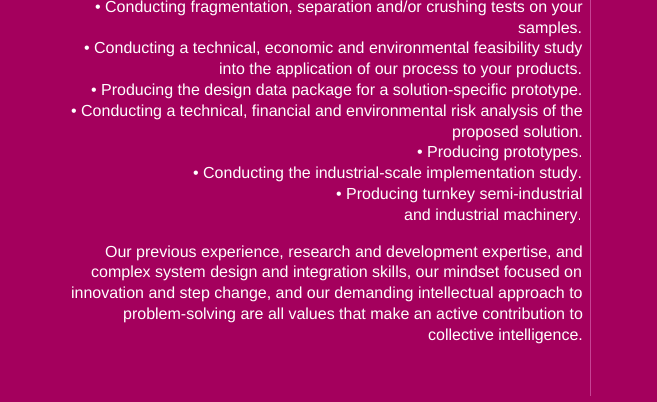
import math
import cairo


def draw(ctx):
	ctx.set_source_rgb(0.643, 0, 0.365)
	ctx.paint()
	ctx.set_source_rgb(0.776, 0.259, 0.58)
	ctx.rectangle(590, 0, 1, 396)
	ctx.fill()
	ctx.select_font_face('Liberation Sans')
	ctx.set_font_size(16)
	ctx.set_source_rgb(1, 1, 1)
	for x, y, s in [
		(95, 12, '• Conducting fragmentation, separation and/or crushing tests on your'),
		(518, 33, 'samples.'),
		(84, 53, '• Conducting a technical, economic and environmental feasibility study'),
		(219, 74, 'into the application of our process to your products.'),
		(91, 95, '• Producing the design data package for a solution-specific prototype.'),
		(71, 116, '• Conducting a technical, financial and environmental risk analysis of the'),
		(452, 137, 'proposed solution.'),
		(417, 157, '• Producing prototypes.'),
		(193, 178, '• Conducting the industrial-scale implementation study.'),
		(336, 199, '• Producing turnkey semi-industrial'),
		(404, 220, 'and industrial machinery.'),
		(105, 257, 'Our previous experience, research and development expertise, and'),
		(91, 277, 'complex system design and integration skills, our mindset focused on'),
		(71, 298, 'innovation and step change, and our demanding intellectual approach to'),
		(123, 319, 'problem-solving are all values that make an active contribution to'),
		(428, 340, 'collective intelligence.'),
	]:
		ctx.move_to(x, y)
		ctx.show_text(s)


surface = cairo.ImageSurface(cairo.FORMAT_RGB24, 657, 402)
ctx = cairo.Context(surface)
options = cairo.FontOptions()
options.set_hint_metrics(cairo.HINT_METRICS_OFF)
options.set_hint_style(cairo.HINT_STYLE_NONE)
ctx.set_font_options(options)
ctx.set_miter_limit(4)
draw(ctx)
surface.write_to_png('image.png')
